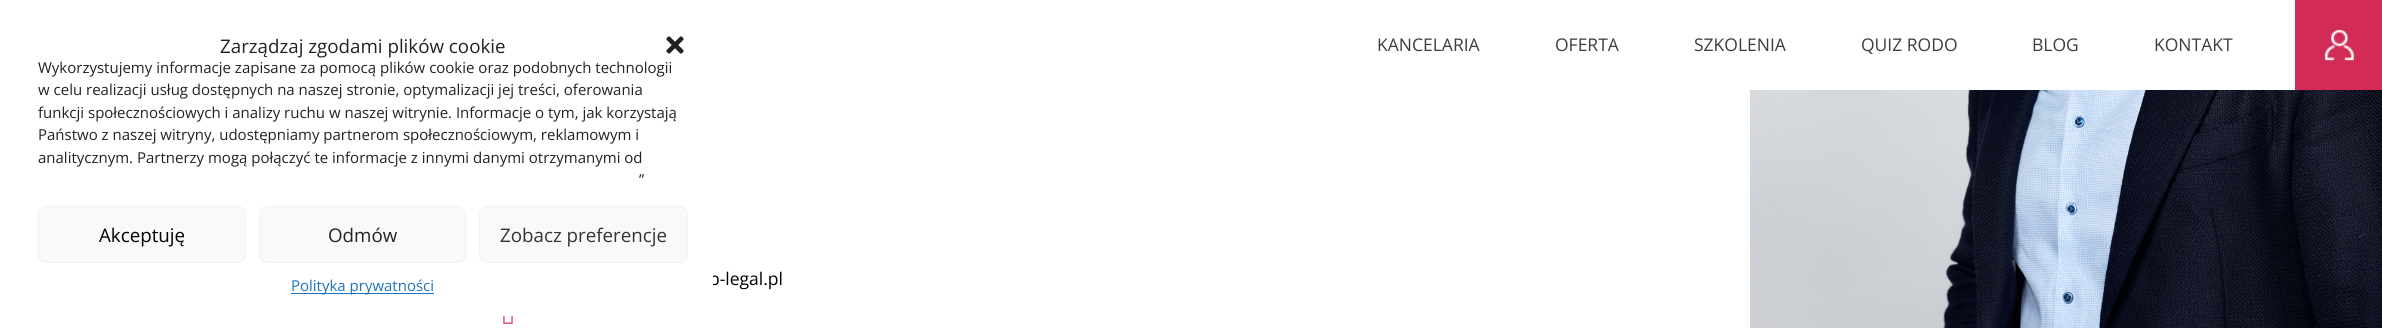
import math
import cairo


def round_path(ctx, x, y, w, h, r):
	ctx.new_sub_path()
	for i, (u, v) in enumerate([(x + w - r, y + h - r), (x + r, y + h - r), (x + r, y + r), (x + w - r, y + r)]):
		ctx.arc(u, v, r, i * math.pi / 2, (i + 1) * math.pi / 2)
	ctx.close_path()

def paste(ctx, path, x, y, w, h):
	ctx.save()
	ctx.set_source_surface(cairo.ImageSurface.create_from_png(path), x, y)
	ctx.rectangle(x, y, w, h)
	ctx.fill()
	ctx.restore()

def draw(ctx):
	ctx.set_source_rgb(1, 1, 1)
	ctx.paint()
	ctx.select_font_face('Open Sans')
	ctx.set_font_size(17.5)
	ctx.set_source_rgb(0, 0, 0)
	ctx.move_to(709, 285)
	ctx.show_text('p-legal.pl')
	ctx.set_source_rgb(1, 1, 1)
	round_path(ctx, 13, 13, 700, 303, 15)
	ctx.fill()
	ctx.set_font_size(18.75)
	ctx.set_source_rgb(0.133, 0.133, 0.133)
	ctx.move_to(220, 53)
	ctx.show_text('Zarządzaj zgodami plików cookie')
	paste(ctx, 'media/1.png', 666, 36, 18, 18)
	ctx.set_font_size(15)
	for x, y, s in [
		(38, 73, 'Wykorzystujemy informacje zapisane za pomocą plików cookie oraz podobnych technologii'),
		(38, 95, 'w celu realizacji usług dostępnych na naszej stronie, optymalizacji jej treści, oferowania'),
		(38, 118, 'funkcji społecznościowych i analizy ruchu w naszej witrynie. Informacje o tym, jak korzystają'),
		(38, 140, 'Państwo z naszej witryny, udostępniamy partnerom społecznościowym, reklamowym i'),
		(38, 163, 'analitycznym. Partnerzy mogą połączyć te informacje z innymi danymi otrzymanymi od'),
		(639, 185, '”'),
	]:
		ctx.move_to(x, y)
		ctx.show_text(s)
	ctx.set_source_rgb(0.976, 0.976, 0.976)
	round_path(ctx, 38.5, 206.5, 207, 56, 7.5)
	ctx.fill_preserve()
	ctx.set_source_rgb(0.949, 0.949, 0.949)
	ctx.set_line_width(1)
	ctx.stroke()
	ctx.set_font_size(18.75)
	ctx.set_source_rgb(0, 0, 0)
	ctx.move_to(99, 242)
	ctx.show_text('Akceptuję')
	ctx.set_source_rgb(0.976, 0.976, 0.976)
	round_path(ctx, 259.5, 206.5, 206, 56, 7.5)
	ctx.fill_preserve()
	ctx.set_source_rgb(0.949, 0.949, 0.949)
	ctx.stroke()
	ctx.set_source_rgb(0.133, 0.133, 0.133)
	ctx.move_to(328, 242)
	ctx.show_text('Odmów')
	ctx.set_source_rgb(0.976, 0.976, 0.976)
	round_path(ctx, 479.5, 206.5, 208, 56, 7.5)
	ctx.fill_preserve()
	ctx.set_source_rgb(0.949, 0.949, 0.949)
	ctx.stroke()
	ctx.set_source_rgb(0.2, 0.2, 0.2)
	ctx.move_to(500, 242)
	ctx.show_text('Zobacz preferencje')
	ctx.set_source_rgb(0.118, 0.451, 0.745)
	ctx.rectangle(291, 293, 143, 1)
	ctx.fill()
	ctx.set_font_size(15)
	ctx.move_to(291, 291)
	ctx.show_text('Polityka prywatności')
	ctx.set_font_size(17.5)
	ctx.set_source_rgb(0.247, 0.235, 0.231)
	for x, y, s in [
		(1377, 51, 'KANCELARIA'),
		(1555, 51, 'OFERTA'),
		(1694, 51, 'SZKOLENIA'),
		(1861, 51, 'QUIZ RODO'),
		(2032, 51, 'BLOG'),
		(2154, 51, 'KONTAKT'),
	]:
		ctx.move_to(x, y)
		ctx.show_text(s)
	ctx.set_source_rgb(0.824, 0.169, 0.337)
	ctx.rectangle(2295, 0, 87, 90)
	ctx.fill()
	paste(ctx, 'media/2.png', 2324, 29, 30, 32)
	paste(ctx, 'media/3.png', 503, 316, 10, 8)
	paste(ctx, 'media/4.png', 1750, 90, 632, 238)


surface = cairo.ImageSurface(cairo.FORMAT_RGB24, 2382, 328)
ctx = cairo.Context(surface)
options = cairo.FontOptions()
options.set_hint_metrics(cairo.HINT_METRICS_OFF)
options.set_hint_style(cairo.HINT_STYLE_NONE)
ctx.set_font_options(options)
ctx.set_miter_limit(4)
draw(ctx)
surface.write_to_png('image.png')
